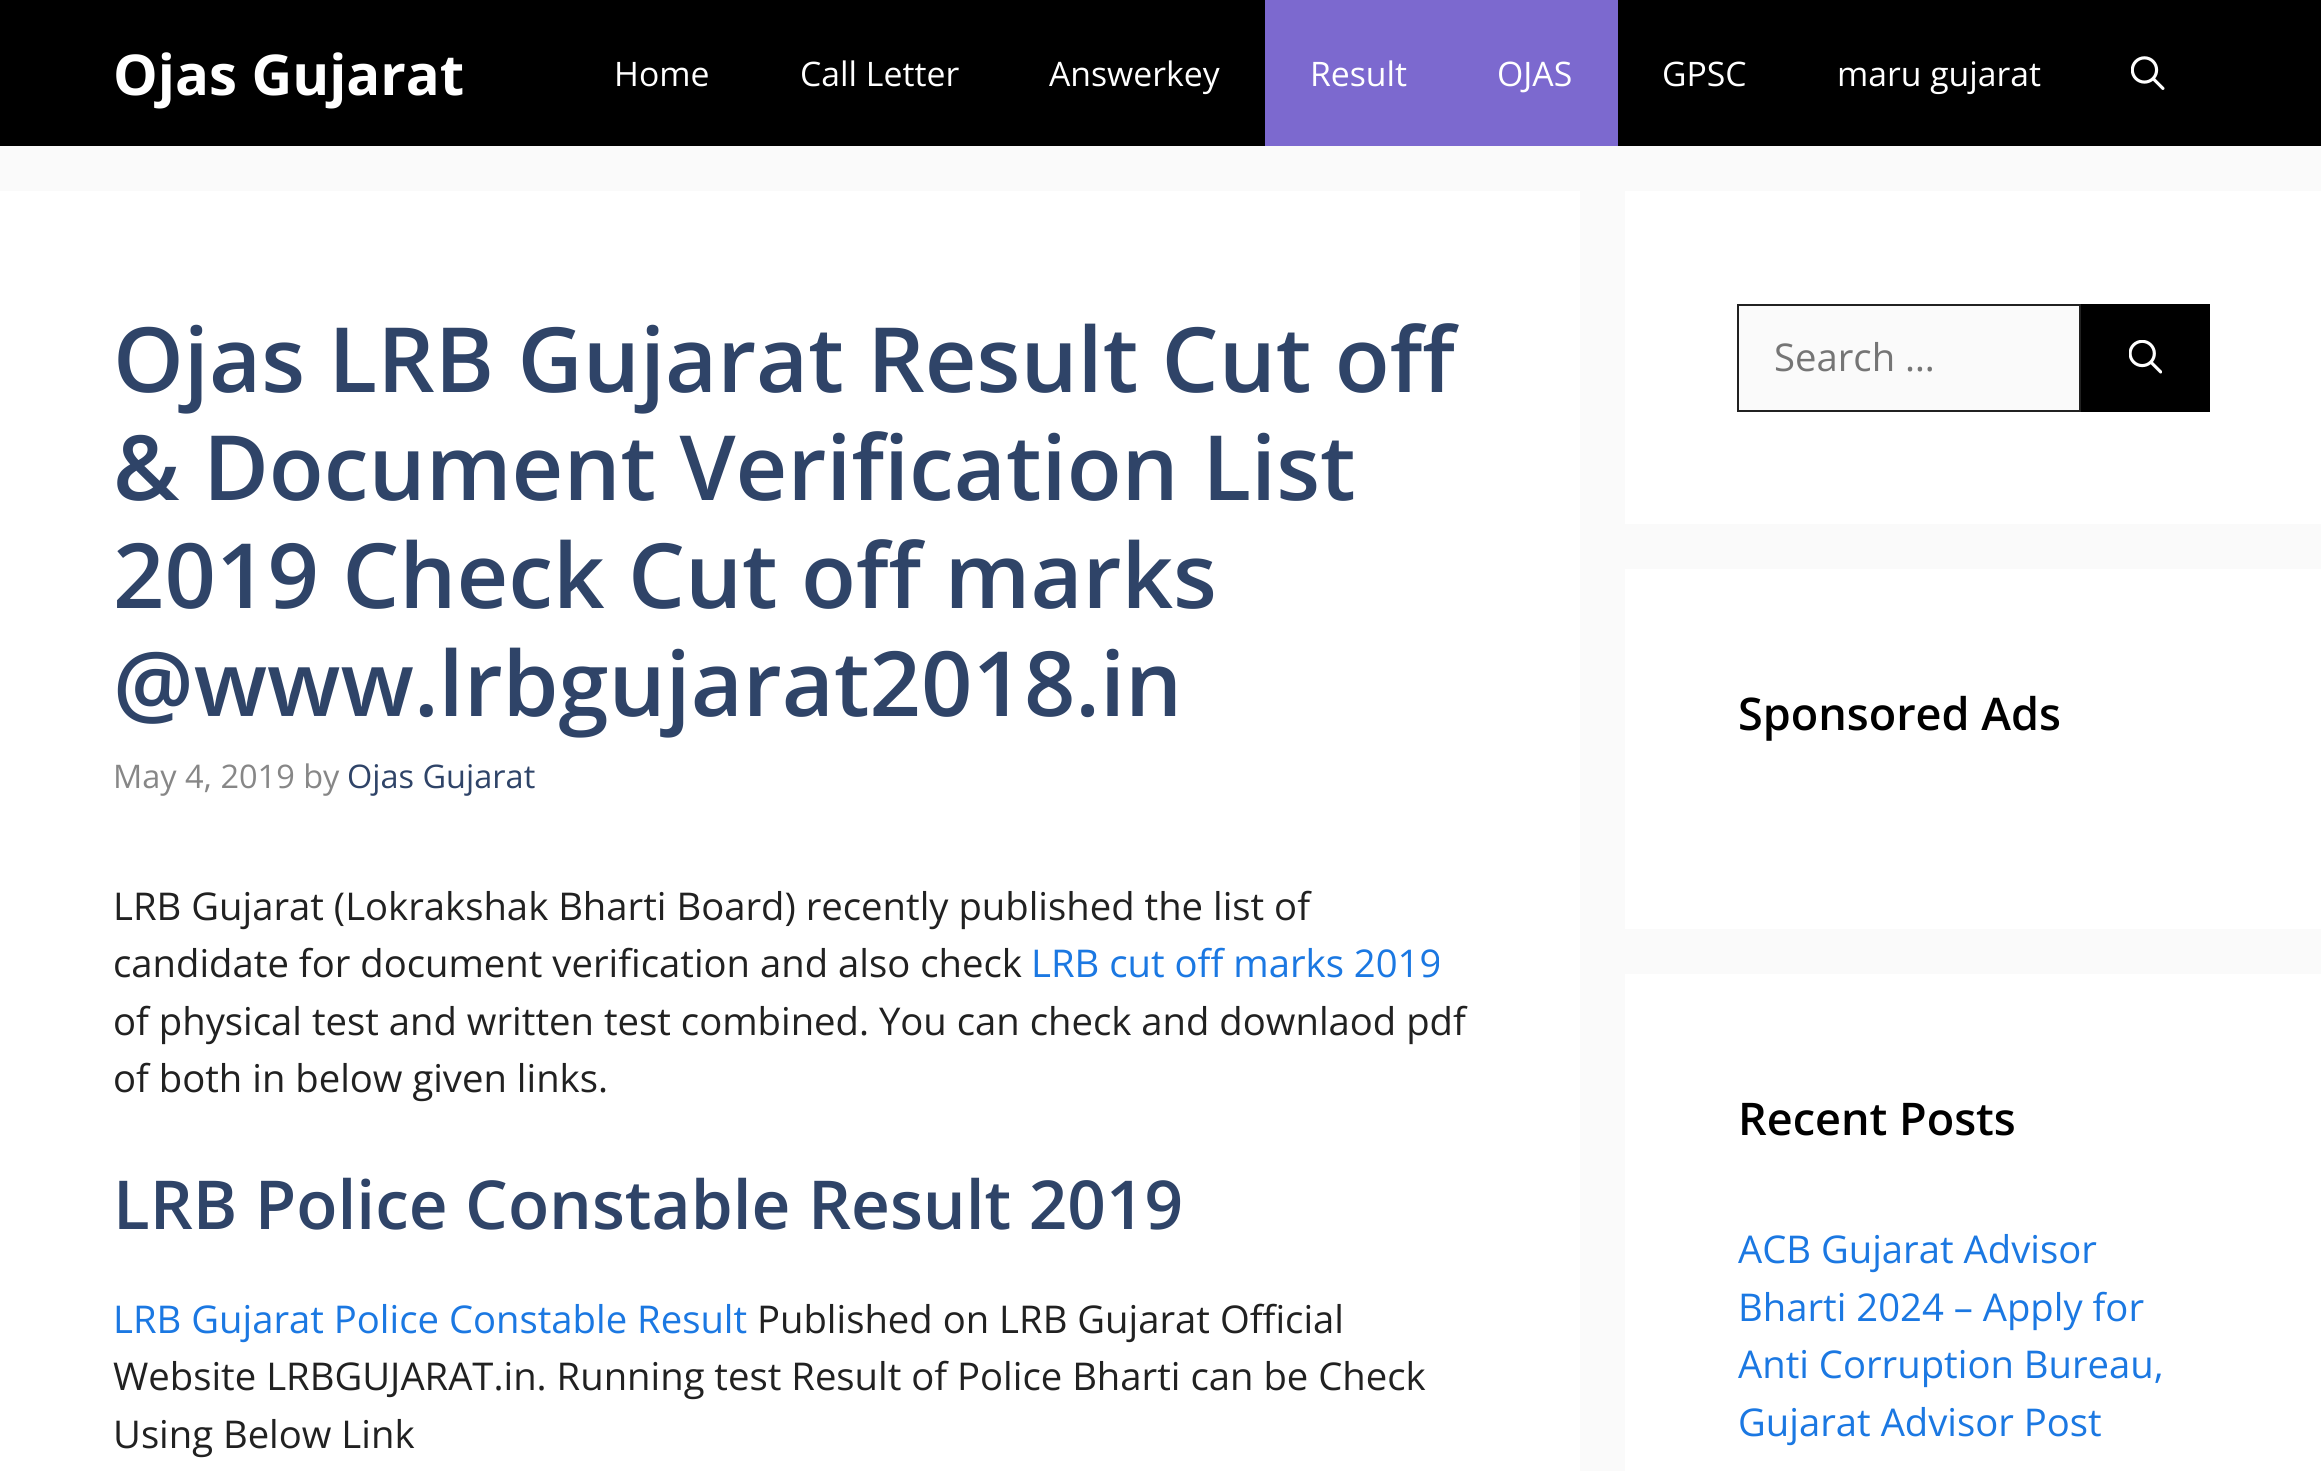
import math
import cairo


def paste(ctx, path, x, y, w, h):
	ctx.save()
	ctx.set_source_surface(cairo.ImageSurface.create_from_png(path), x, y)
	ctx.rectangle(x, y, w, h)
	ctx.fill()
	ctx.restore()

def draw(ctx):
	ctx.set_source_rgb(0.98, 0.98, 0.98)
	ctx.paint()
	ctx.set_source_rgb(0, 0, 0)
	ctx.rectangle(0, 0, 2321, 146)
	ctx.fill()
	ctx.select_font_face('Open Sans', cairo.FONT_SLANT_NORMAL, cairo.FONT_WEIGHT_BOLD)
	ctx.set_font_size(56.25)
	ctx.set_source_rgb(1, 1, 1)
	ctx.move_to(113, 95)
	ctx.show_text('Ojas Gujarat')
	ctx.select_font_face('Open Sans')
	ctx.set_font_size(33.75)
	for x, y, s in [
		(614, 86, 'Home'),
		(800, 86, 'Call Letter'),
		(1049, 86, 'Answerkey'),
	]:
		ctx.move_to(x, y)
		ctx.show_text(s)
	ctx.set_source_rgb(0.486, 0.412, 0.812)
	ctx.rectangle(1265, 0, 353, 146)
	ctx.fill()
	ctx.set_source_rgb(1, 1, 1)
	for x, y, s in [
		(1310, 86, 'Result'),
		(1497, 86, 'OJAS'),
		(1662, 86, 'GPSC'),
		(1837, 86, 'maru gujarat'),
	]:
		ctx.move_to(x, y)
		ctx.show_text(s)
	paste(ctx, 'media/1.png', 2131, 56, 34, 34)
	ctx.rectangle(0, 191, 1580, 1280)
	ctx.fill()
	ctx.select_font_face('Open Sans SemiBold')
	ctx.set_font_size(90)
	ctx.set_source_rgb(0.184, 0.267, 0.408)
	for x, y, s in [
		(113, 392, 'Ojas LRB Gujarat Result Cut off'),
		(113, 500, '& Document Verification List'),
		(113, 608, '2019 Check Cut off marks'),
		(113, 716, '@www.lrbgujarat2018.in'),
	]:
		ctx.move_to(x, y)
		ctx.show_text(s)
	ctx.select_font_face('Open Sans')
	ctx.set_font_size(32.5)
	ctx.set_source_rgb(0.529, 0.529, 0.529)
	ctx.move_to(113, 788)
	ctx.show_text('May 4, 2019 by')
	ctx.set_source_rgb(0.184, 0.267, 0.408)
	ctx.move_to(347, 788)
	ctx.show_text('Ojas Gujarat')
	ctx.set_font_size(38.25)
	ctx.set_source_rgb(0.129, 0.129, 0.129)
	ctx.move_to(113, 920)
	ctx.show_text('LRB Gujarat (Lokrakshak Bharti Board) recently published the list of')
	ctx.move_to(113, 977)
	ctx.show_text('candidate for document verification and also check')
	ctx.set_source_rgb(0.106, 0.471, 0.886)
	ctx.move_to(1031, 977)
	ctx.show_text('LRB cut off marks 2019')
	ctx.set_source_rgb(0.129, 0.129, 0.129)
	ctx.move_to(113, 1035)
	ctx.show_text('of physical test and written test combined. You can check and downlaod pdf')
	ctx.move_to(113, 1092)
	ctx.show_text('of both in below given links.')
	ctx.select_font_face('Open Sans SemiBold')
	ctx.set_font_size(67.5)
	ctx.set_source_rgb(0.184, 0.267, 0.408)
	ctx.move_to(113, 1229)
	ctx.show_text('LRB Police Constable Result 2019')
	ctx.select_font_face('Open Sans')
	ctx.set_font_size(38.25)
	ctx.set_source_rgb(0.106, 0.471, 0.886)
	ctx.move_to(113, 1333)
	ctx.show_text('LRB Gujarat Police Constable Result')
	ctx.set_source_rgb(0.129, 0.129, 0.129)
	for x, y, s in [
		(757, 1333, 'Published on LRB Gujarat Official'),
		(113, 1390, 'Website LRBGUJARAT.in. Running test Result of Police Bharti can be Check'),
		(113, 1448, 'Using Below Link'),
	]:
		ctx.move_to(x, y)
		ctx.show_text(s)
	ctx.set_source_rgb(1, 1, 1)
	ctx.rectangle(1625, 191, 696, 333)
	ctx.fill()
	ctx.set_source_rgb(0.98, 0.98, 0.98)
	ctx.rectangle(1738, 305, 342, 106)
	ctx.fill_preserve()
	ctx.set_source_rgb(0.129, 0.129, 0.129)
	ctx.stroke()
	ctx.set_source_rgb(0.459, 0.459, 0.459)
	ctx.move_to(1774, 371)
	ctx.show_text('Search …')
	ctx.set_source_rgb(0, 0, 0)
	ctx.rectangle(2081, 304, 129, 108)
	ctx.fill()
	paste(ctx, 'media/2.png', 2129, 340, 33, 34)
	ctx.set_source_rgb(1, 1, 1)
	ctx.rectangle(1625, 569, 696, 360)
	ctx.fill()
	ctx.select_font_face('Open Sans SemiBold')
	ctx.set_font_size(45)
	ctx.set_source_rgb(0, 0, 0)
	ctx.move_to(1738, 730)
	ctx.show_text('Sponsored Ads')
	ctx.set_source_rgb(1, 1, 1)
	ctx.rectangle(1625, 974, 696, 497)
	ctx.fill()
	ctx.set_source_rgb(0, 0, 0)
	ctx.move_to(1738, 1135)
	ctx.show_text('Recent Posts')
	ctx.select_font_face('Open Sans')
	ctx.set_font_size(38.25)
	ctx.set_source_rgb(0.106, 0.471, 0.886)
	for x, y, s in [
		(1738, 1263, 'ACB Gujarat Advisor'),
		(1738, 1321, 'Bharti 2024 – Apply for'),
		(1738, 1378, 'Anti Corruption Bureau,'),
		(1738, 1436, 'Gujarat Advisor Post'),
	]:
		ctx.move_to(x, y)
		ctx.show_text(s)


surface = cairo.ImageSurface(cairo.FORMAT_RGB24, 2321, 1471)
ctx = cairo.Context(surface)
options = cairo.FontOptions()
options.set_hint_metrics(cairo.HINT_METRICS_OFF)
options.set_hint_style(cairo.HINT_STYLE_NONE)
ctx.set_font_options(options)
ctx.set_miter_limit(4)
draw(ctx)
surface.write_to_png('image.png')
